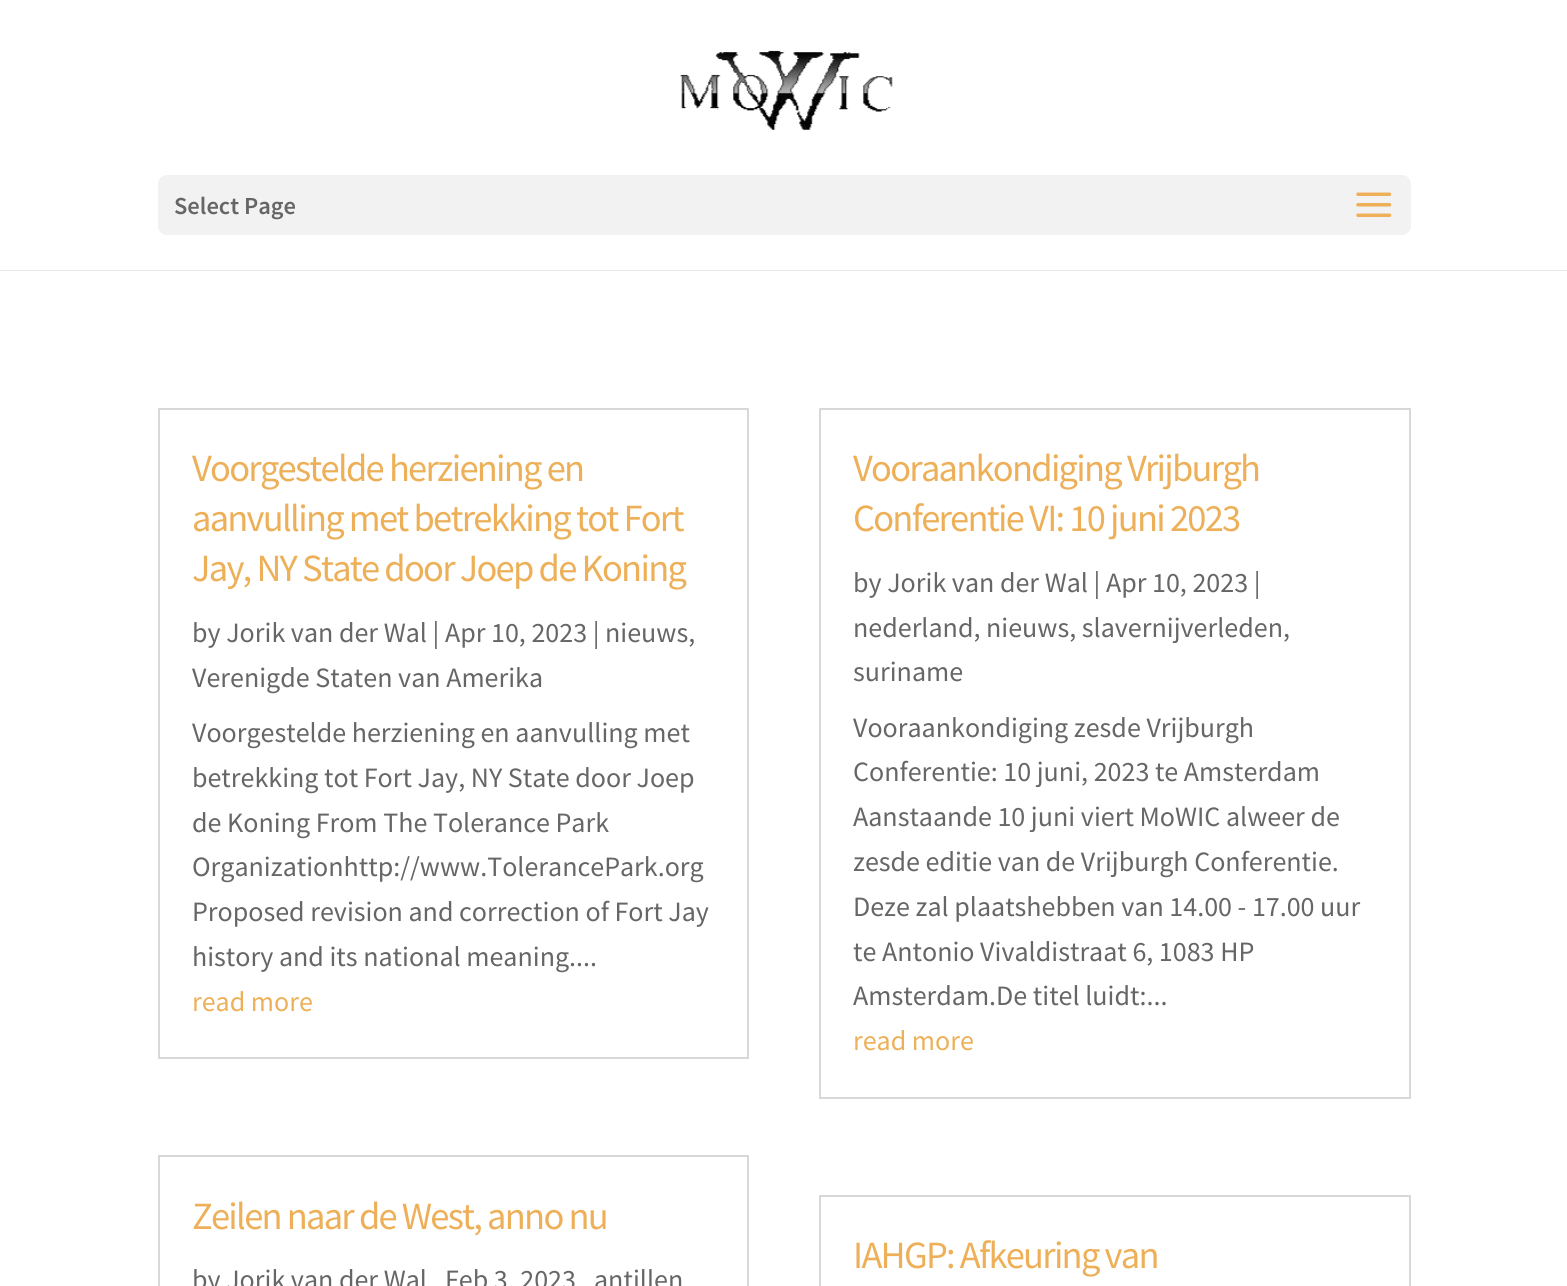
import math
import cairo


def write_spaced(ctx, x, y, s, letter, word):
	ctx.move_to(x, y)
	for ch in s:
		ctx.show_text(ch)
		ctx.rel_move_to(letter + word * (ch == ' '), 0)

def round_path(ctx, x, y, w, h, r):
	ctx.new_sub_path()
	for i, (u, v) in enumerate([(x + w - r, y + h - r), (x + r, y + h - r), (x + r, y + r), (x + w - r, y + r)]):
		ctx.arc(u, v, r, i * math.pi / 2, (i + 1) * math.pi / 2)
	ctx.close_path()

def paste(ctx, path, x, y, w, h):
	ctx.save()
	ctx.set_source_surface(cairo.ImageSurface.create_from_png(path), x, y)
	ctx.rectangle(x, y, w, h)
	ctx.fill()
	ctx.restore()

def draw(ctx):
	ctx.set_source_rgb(1, 1, 1)
	ctx.paint()
	ctx.set_source_rgb(0.902, 0.902, 0.902)
	ctx.rectangle(0, 270, 1567, 1)
	ctx.fill()
	paste(ctx, 'media/1.png', 680, 50, 213, 80)
	ctx.set_source_rgb(0.949, 0.949, 0.949)
	round_path(ctx, 158, 175, 1253, 60, 9)
	ctx.fill()
	ctx.select_font_face('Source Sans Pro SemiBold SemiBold')
	ctx.set_font_size(24.5)
	ctx.set_source_rgb(0.4, 0.4, 0.4)
	ctx.move_to(174, 214)
	ctx.show_text('Select Page')
	paste(ctx, 'media/2.png', 1356, 192, 36, 25)
	ctx.rectangle(159, 409, 589, 649)
	ctx.set_source_rgb(0.847, 0.847, 0.847)
	ctx.stroke()
	ctx.select_font_face('Source Sans Pro')
	ctx.set_font_size(38.5)
	ctx.set_source_rgb(0.929, 0.69, 0.349)
	for x, y, s in [
		(192, 481, 'Voorgestelde herziening en'),
		(192, 531, 'aanvulling met betrekking tot Fort'),
		(192, 581, 'Jay, NY State door Joep de Koning'),
	]:
		write_spaced(ctx, x, y, s, -1.75, 0)
	ctx.set_font_size(28)
	ctx.set_source_rgb(0.4, 0.4, 0.4)
	for x, y, s in [
		(192, 642, 'by Jorik van der Wal | Apr 10, 2023 | nieuws,'),
		(192, 687, 'Verenigde Staten van Amerika'),
		(192, 742, 'Voorgestelde herziening en aanvulling met'),
		(192, 787, 'betrekking tot Fort Jay, NY State door Joep'),
		(192, 832, 'de Koning From The Tolerance Park'),
		(192, 876, 'Organizationhttp://www.TolerancePark.org'),
		(192, 921, 'Proposed revision and correction of Fort Jay'),
		(192, 966, 'history and its national meaning....'),
	]:
		ctx.move_to(x, y)
		ctx.show_text(s)
	ctx.set_source_rgb(0.929, 0.69, 0.349)
	ctx.move_to(192, 1011)
	ctx.show_text('read more')
	ctx.rectangle(159, 1156, 589, 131)
	ctx.set_source_rgb(0.847, 0.847, 0.847)
	ctx.stroke()
	ctx.set_font_size(38.5)
	ctx.set_source_rgb(0.929, 0.69, 0.349)
	write_spaced(ctx, 192, 1229, 'Zeilen naar de West, anno nu', -1.75, 0)
	ctx.set_font_size(28)
	ctx.set_source_rgb(0.4, 0.4, 0.4)
	for x, y, s in [
		(192, 1289, 'by Jorik van der Wal'),
		(445, 1289, 'Feb 3, 2023'),
		(594, 1289, 'antillen'),
	]:
		ctx.move_to(x, y)
		ctx.show_text(s)
	ctx.rectangle(820, 409, 590, 689)
	ctx.set_source_rgb(0.847, 0.847, 0.847)
	ctx.stroke()
	ctx.set_font_size(38.5)
	ctx.set_source_rgb(0.929, 0.69, 0.349)
	write_spaced(ctx, 853, 481, 'Vooraankondiging Vrijburgh', -1.75, 0)
	write_spaced(ctx, 853, 531, 'Conferentie VI: 10 juni 2023', -1.75, 0)
	ctx.set_font_size(28)
	ctx.set_source_rgb(0.4, 0.4, 0.4)
	for x, y, s in [
		(853, 592, 'by Jorik van der Wal | Apr 10, 2023 |'),
		(853, 637, 'nederland, nieuws, slavernijverleden,'),
		(853, 681, 'suriname'),
		(853, 737, 'Vooraankondiging zesde Vrijburgh'),
		(853, 781, 'Conferentie: 10 juni, 2023 te Amsterdam'),
		(853, 826, 'Aanstaande 10 juni viert MoWIC alweer de'),
		(853, 871, 'zesde editie van de Vrijburgh Conferentie.'),
		(853, 916, 'Deze zal plaatshebben van 14.00 - 17.00 uur'),
		(853, 961, 'te Antonio Vivaldistraat 6, 1083 HP'),
		(853, 1005, 'Amsterdam.De titel luidt:...'),
	]:
		ctx.move_to(x, y)
		ctx.show_text(s)
	ctx.set_source_rgb(0.929, 0.69, 0.349)
	ctx.move_to(853, 1050)
	ctx.show_text('read more')
	ctx.rectangle(820, 1196, 590, 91)
	ctx.set_source_rgb(0.847, 0.847, 0.847)
	ctx.stroke()
	ctx.set_font_size(38.5)
	ctx.set_source_rgb(0.929, 0.69, 0.349)
	write_spaced(ctx, 853, 1268, 'IAHGP: Afkeuring van', -1.75, 0)


surface = cairo.ImageSurface(cairo.FORMAT_RGB24, 1567, 1286)
ctx = cairo.Context(surface)
options = cairo.FontOptions()
options.set_hint_metrics(cairo.HINT_METRICS_OFF)
options.set_hint_style(cairo.HINT_STYLE_NONE)
ctx.set_font_options(options)
ctx.set_miter_limit(4)
draw(ctx)
surface.write_to_png('image.png')
